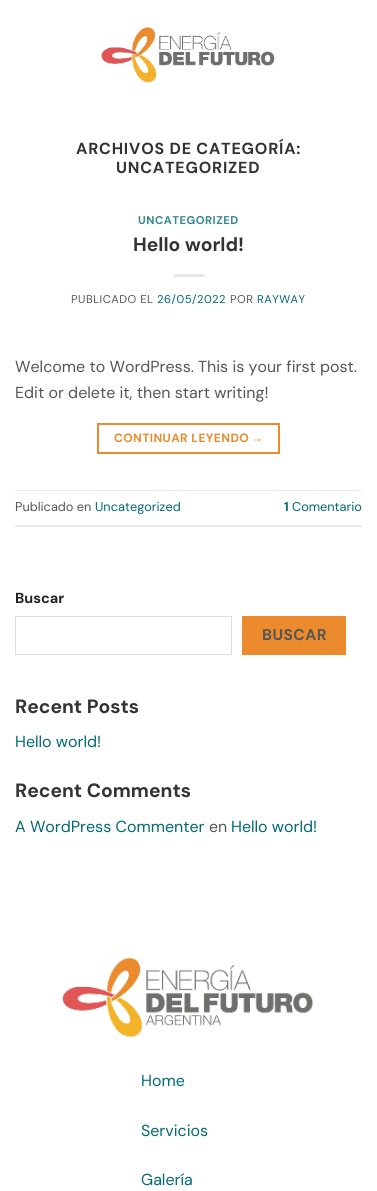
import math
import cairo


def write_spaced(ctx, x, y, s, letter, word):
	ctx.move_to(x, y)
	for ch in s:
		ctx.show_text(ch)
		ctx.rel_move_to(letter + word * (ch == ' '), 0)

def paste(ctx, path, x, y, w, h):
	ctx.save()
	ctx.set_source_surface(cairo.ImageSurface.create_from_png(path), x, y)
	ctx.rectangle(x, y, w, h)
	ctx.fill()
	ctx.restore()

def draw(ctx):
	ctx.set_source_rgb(1, 1, 1)
	ctx.paint()
	paste(ctx, 'media/1.png', 101, 26, 174, 57)
	ctx.select_font_face('DM Sans', cairo.FONT_SLANT_NORMAL, cairo.FONT_WEIGHT_BOLD)
	ctx.set_font_size(16)
	ctx.set_source_rgb(0.2, 0.2, 0.2)
	write_spaced(ctx, 76, 154, 'ARCHIVOS DE CATEGORÍA:', 0.8, 0)
	write_spaced(ctx, 116, 173, 'UNCATEGORIZED', 0.8, 0)
	ctx.set_font_size(11.25)
	ctx.set_source_rgb(0.2, 0.529, 0.561)
	write_spaced(ctx, 138, 224, 'UNCATEGORIZED', 0.5, 0)
	ctx.set_font_size(19.25)
	ctx.set_source_rgb(0.2, 0.2, 0.2)
	ctx.move_to(133, 251)
	ctx.show_text('Hello world!')
	ctx.set_source_rgb(0.902, 0.902, 0.902)
	ctx.rectangle(174, 274, 30, 3)
	ctx.fill()
	ctx.select_font_face('DM Sans')
	ctx.set_font_size(11.25)
	ctx.set_source_rgb(0.333, 0.333, 0.333)
	write_spaced(ctx, 71, 303, 'PUBLICADO EL', 0.5, 0)
	ctx.set_source_rgb(0, 0.412, 0.451)
	write_spaced(ctx, 157, 303, '26/05/2022', 0.5, 0)
	ctx.set_source_rgb(0.333, 0.333, 0.333)
	write_spaced(ctx, 230, 303, 'POR', 0.5, 0)
	ctx.set_source_rgb(0, 0.412, 0.451)
	write_spaced(ctx, 257, 303, 'RAYWAY', 0.5, 0)
	ctx.set_font_size(16)
	ctx.set_source_rgb(0.333, 0.333, 0.333)
	ctx.move_to(15, 372)
	ctx.show_text('Welcome to WordPress. This is your first post.')
	ctx.move_to(15, 398)
	ctx.show_text('Edit or delete it, then start writing!')
	ctx.rectangle(98, 424, 181, 29)
	ctx.set_source_rgb(0.918, 0.545, 0.176)
	ctx.stroke()
	ctx.select_font_face('DM Sans', cairo.FONT_SLANT_NORMAL, cairo.FONT_WEIGHT_BOLD)
	ctx.set_font_size(12)
	write_spaced(ctx, 114, 442, 'CONTINUAR LEYENDO', 0.4, 0)
	ctx.select_font_face('Liberation Sans', cairo.FONT_SLANT_NORMAL, cairo.FONT_WEIGHT_BOLD)
	write_spaced(ctx, 251, 442, '→', 0.4, 0)
	ctx.set_source_rgb(0.925, 0.925, 0.925)
	ctx.rectangle(15, 490, 347, 1)
	ctx.fill()
	ctx.rectangle(15, 525, 347, 2)
	ctx.fill()
	ctx.select_font_face('DM Sans')
	ctx.set_font_size(12.75)
	ctx.set_source_rgb(0.333, 0.333, 0.333)
	ctx.move_to(15, 511)
	ctx.show_text('Publicado en')
	ctx.set_source_rgb(0, 0.412, 0.451)
	ctx.move_to(95, 511)
	ctx.show_text('Uncategorized')
	ctx.select_font_face('DM Sans', cairo.FONT_SLANT_NORMAL, cairo.FONT_WEIGHT_BOLD)
	ctx.move_to(284, 511)
	ctx.show_text('1')
	ctx.select_font_face('DM Sans')
	ctx.move_to(292, 511)
	ctx.show_text('Comentario')
	ctx.select_font_face('DM Sans', cairo.FONT_SLANT_NORMAL, cairo.FONT_WEIGHT_BOLD)
	ctx.set_font_size(14.5)
	ctx.set_source_rgb(0.133, 0.133, 0.133)
	ctx.move_to(15, 603)
	ctx.show_text('Buscar')
	ctx.rectangle(15.5, 616.5, 216, 38)
	ctx.set_source_rgb(0.867, 0.867, 0.867)
	ctx.set_line_width(1)
	ctx.stroke()
	ctx.set_source_rgb(0.918, 0.545, 0.176)
	ctx.rectangle(242, 616, 104, 39)
	ctx.fill()
	ctx.set_font_size(15.5)
	ctx.set_source_rgb(0.333, 0.333, 0.333)
	write_spaced(ctx, 262, 640, 'BUSCAR', 0.5, 0)
	ctx.set_font_size(19.25)
	ctx.set_source_rgb(0.2, 0.2, 0.2)
	ctx.move_to(15, 713)
	ctx.show_text('Recent Posts')
	ctx.select_font_face('DM Sans')
	ctx.set_font_size(16)
	ctx.set_source_rgb(0, 0.412, 0.451)
	ctx.move_to(15, 747)
	ctx.show_text('Hello world!')
	ctx.select_font_face('DM Sans', cairo.FONT_SLANT_NORMAL, cairo.FONT_WEIGHT_BOLD)
	ctx.set_font_size(19.25)
	ctx.set_source_rgb(0.2, 0.2, 0.2)
	ctx.move_to(15, 797)
	ctx.show_text('Recent Comments')
	ctx.select_font_face('DM Sans')
	ctx.set_font_size(16)
	ctx.set_source_rgb(0, 0.412, 0.451)
	ctx.move_to(15, 832)
	ctx.show_text('A WordPress Commenter')
	ctx.set_source_rgb(0.333, 0.333, 0.333)
	ctx.move_to(209, 832)
	ctx.show_text('en')
	ctx.set_source_rgb(0, 0.412, 0.451)
	ctx.move_to(231, 832)
	ctx.show_text('Hello world!')
	paste(ctx, 'media/2.png', 62, 957, 252, 81)
	for x, y, s in [
		(141, 1086, 'Home'),
		(141, 1136, 'Servicios'),
		(141, 1185, 'Galería'),
	]:
		ctx.move_to(x, y)
		ctx.show_text(s)


surface = cairo.ImageSurface(cairo.FORMAT_RGB24, 377, 1191)
ctx = cairo.Context(surface)
options = cairo.FontOptions()
options.set_hint_metrics(cairo.HINT_METRICS_OFF)
options.set_hint_style(cairo.HINT_STYLE_NONE)
ctx.set_font_options(options)
ctx.set_miter_limit(4)
draw(ctx)
surface.write_to_png('image.png')
